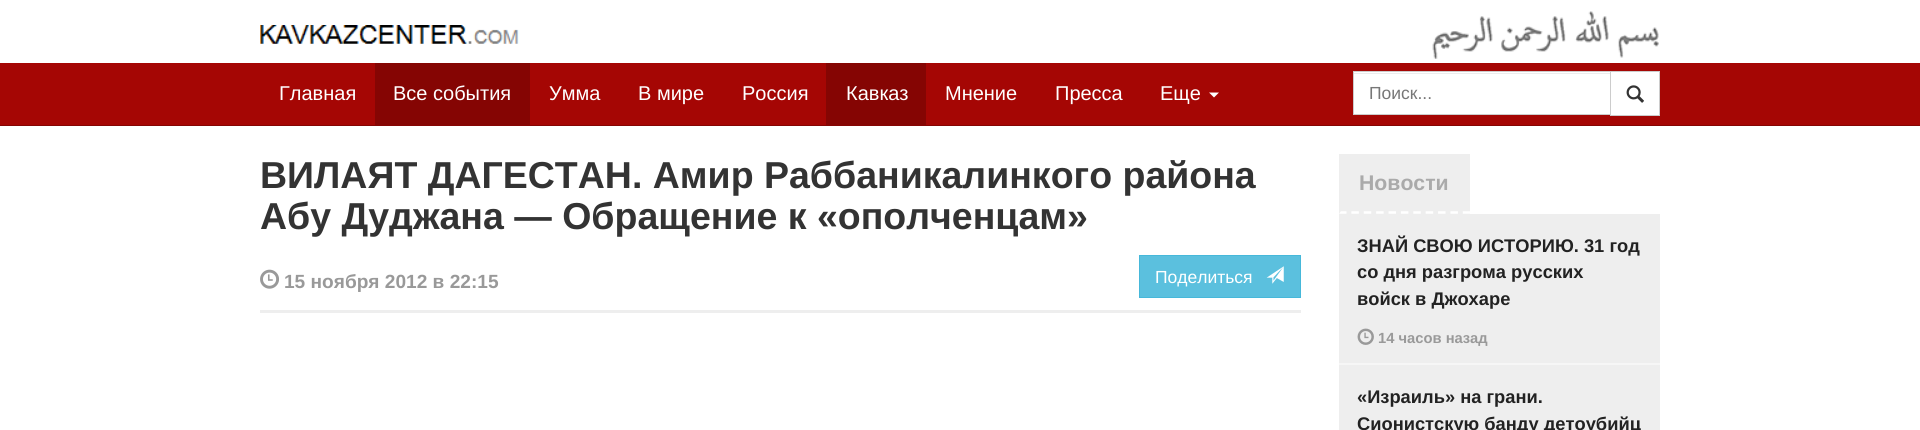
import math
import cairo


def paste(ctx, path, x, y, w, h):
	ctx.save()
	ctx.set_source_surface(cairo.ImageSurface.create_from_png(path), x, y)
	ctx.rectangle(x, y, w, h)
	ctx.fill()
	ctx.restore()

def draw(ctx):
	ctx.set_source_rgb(1, 1, 1)
	ctx.paint()
	paste(ctx, 'media/1.png', 260, 25, 259, 19)
	paste(ctx, 'media/2.png', 1432, 11, 227, 48)
	ctx.set_source_rgb(0.647, 0.024, 0.016)
	ctx.rectangle(0, 63, 1920, 62)
	ctx.fill()
	ctx.set_source_rgb(0.522, 0.02, 0.012)
	ctx.rectangle(0, 125, 1920, 1)
	ctx.fill()
	ctx.select_font_face('Liberation Sans')
	ctx.set_font_size(20)
	ctx.set_source_rgb(1, 1, 1)
	ctx.move_to(279, 100)
	ctx.show_text('Главная')
	ctx.set_source_rgb(0.522, 0.02, 0.012)
	ctx.rectangle(375, 63, 155, 62)
	ctx.fill()
	ctx.set_source_rgb(1, 1, 1)
	for x, y, s in [
		(393, 100, 'Все события'),
		(549, 100, 'Умма'),
		(638, 100, 'В мире'),
		(742, 100, 'Россия'),
	]:
		ctx.move_to(x, y)
		ctx.show_text(s)
	ctx.set_source_rgb(0.522, 0.02, 0.012)
	ctx.rectangle(826, 63, 100, 62)
	ctx.fill()
	ctx.set_source_rgb(1, 1, 1)
	for x, y, s in [
		(846, 100, 'Кавказ'),
		(945, 100, 'Мнение'),
		(1055, 100, 'Пресса'),
		(1160, 100, 'Еще'),
	]:
		ctx.move_to(x, y)
		ctx.show_text(s)
	ctx.new_path()
	ctx.move_to(1209, 92.5)
	ctx.line_to(1219, 92.5)
	ctx.line_to(1214, 97.5)
	ctx.close_path()
	ctx.fill()
	ctx.rectangle(1354, 72, 256, 42)
	ctx.fill()
	ctx.set_source_rgb(0.925, 0.925, 0.925)
	ctx.rectangle(1354, 73, 256, 1)
	ctx.fill()
	ctx.set_source_rgb(1, 1, 1)
	ctx.rectangle(1610.5, 71.5, 49, 44)
	ctx.fill_preserve()
	ctx.set_source_rgb(0.8, 0.8, 0.8)
	ctx.set_line_width(1)
	ctx.stroke()
	ctx.rectangle(1353.5, 71.5, 257, 43)
	ctx.stroke()
	ctx.set_font_size(17.5)
	ctx.set_source_rgb(0.467, 0.467, 0.467)
	ctx.move_to(1369, 99)
	ctx.show_text('Поиск...')
	paste(ctx, 'media/3.png', 1626, 85, 18, 18)
	ctx.select_font_face('Liberation Sans', cairo.FONT_SLANT_NORMAL, cairo.FONT_WEIGHT_BOLD)
	ctx.set_font_size(37.5)
	ctx.set_source_rgb(0.2, 0.2, 0.2)
	ctx.move_to(260, 188)
	ctx.show_text('ВИЛАЯТ ДАГЕСТАН. Амир Раббаникалинкого района')
	ctx.move_to(260, 229)
	ctx.show_text('Абу Дуджана — Обращение к «ополченцам»')
	paste(ctx, 'media/4.png', 260, 269, 19, 20)
	ctx.set_font_size(19.1)
	ctx.set_source_rgb(0.6, 0.6, 0.6)
	ctx.move_to(284, 288)
	ctx.show_text('15 ноября 2012 в 22:15')
	ctx.set_source_rgb(0.357, 0.753, 0.871)
	ctx.rectangle(1139.5, 255.5, 161, 42)
	ctx.fill_preserve()
	ctx.set_source_rgb(0.275, 0.722, 0.855)
	ctx.stroke()
	ctx.select_font_face('Liberation Sans')
	ctx.set_font_size(17.5)
	ctx.set_source_rgb(1, 1, 1)
	ctx.move_to(1155, 283)
	ctx.show_text('Поделиться')
	paste(ctx, 'media/5.png', 1266, 266, 18, 18)
	ctx.set_source_rgb(0.933, 0.933, 0.933)
	ctx.rectangle(260, 310, 1041, 3)
	ctx.fill()
	ctx.rectangle(1339, 154, 131, 60)
	ctx.fill()
	ctx.new_path()
	ctx.move_to(1339, 212.5)
	ctx.line_to(1470, 212.5)
	ctx.set_source_rgb(1, 1, 1)
	ctx.set_line_width(2.5)
	ctx.set_dash([7.5, 4.88])
	ctx.stroke()
	ctx.set_source_rgb(0.933, 0.933, 0.933)
	ctx.new_path()
	ctx.move_to(1339, 214)
	ctx.line_to(1339, 154)
	ctx.line_to(1341, 156)
	ctx.line_to(1341, 211)
	ctx.close_path()
	ctx.fill()
	ctx.select_font_face('Liberation Sans', cairo.FONT_SLANT_NORMAL, cairo.FONT_WEIGHT_BOLD)
	ctx.set_font_size(21.25)
	ctx.set_source_rgb(0.667, 0.667, 0.667)
	ctx.move_to(1359, 190)
	ctx.show_text('Новости')
	ctx.set_source_rgb(0.933, 0.933, 0.933)
	ctx.rectangle(1339, 214, 321, 149)
	ctx.fill()
	ctx.set_source_rgb(0.961, 0.961, 0.961)
	ctx.rectangle(1339, 363, 321, 2)
	ctx.fill()
	ctx.set_font_size(18.3)
	ctx.set_source_rgb(0.133, 0.133, 0.133)
	for x, y, s in [
		(1357, 252, 'ЗНАЙ СВОЮ ИСТОРИЮ. 31 год'),
		(1357, 278, 'со дня разгрома русских'),
		(1357, 305, 'войск в Джохаре'),
	]:
		ctx.move_to(x, y)
		ctx.show_text(s)
	paste(ctx, 'media/6.png', 1357, 328, 17, 17)
	ctx.set_font_size(14.75)
	ctx.set_source_rgb(0.6, 0.6, 0.6)
	ctx.move_to(1378, 343)
	ctx.show_text('14 часов назад')
	ctx.set_source_rgb(0.933, 0.933, 0.933)
	ctx.rectangle(1339, 365, 321, 65)
	ctx.fill()
	ctx.set_font_size(18.3)
	ctx.set_source_rgb(0.133, 0.133, 0.133)
	ctx.move_to(1357, 403)
	ctx.show_text('«Израиль» на грани.')
	ctx.move_to(1357, 430)
	ctx.show_text('Сионистскую банду детоубийц')


surface = cairo.ImageSurface(cairo.FORMAT_RGB24, 1920, 430)
ctx = cairo.Context(surface)
options = cairo.FontOptions()
options.set_hint_metrics(cairo.HINT_METRICS_OFF)
options.set_hint_style(cairo.HINT_STYLE_NONE)
ctx.set_font_options(options)
ctx.set_miter_limit(4)
draw(ctx)
surface.write_to_png('image.png')
